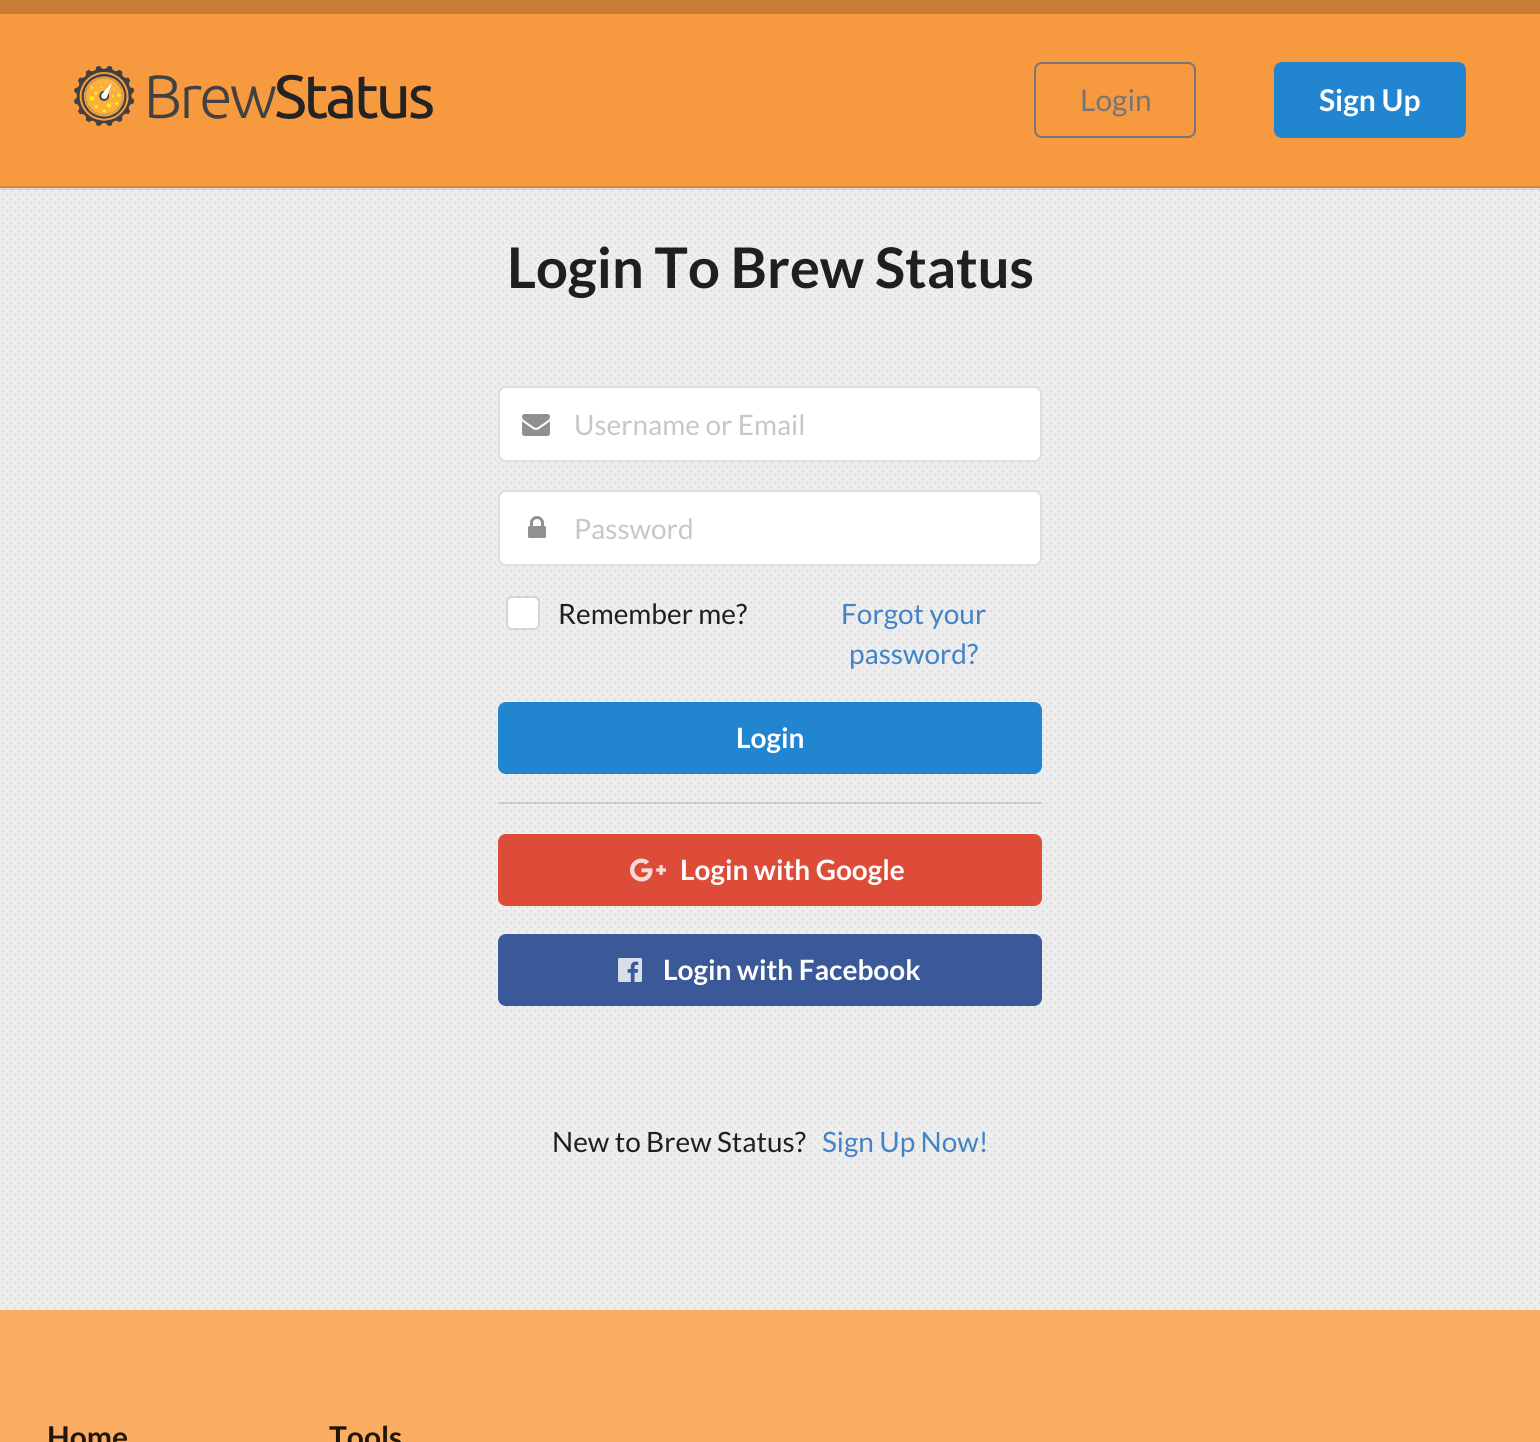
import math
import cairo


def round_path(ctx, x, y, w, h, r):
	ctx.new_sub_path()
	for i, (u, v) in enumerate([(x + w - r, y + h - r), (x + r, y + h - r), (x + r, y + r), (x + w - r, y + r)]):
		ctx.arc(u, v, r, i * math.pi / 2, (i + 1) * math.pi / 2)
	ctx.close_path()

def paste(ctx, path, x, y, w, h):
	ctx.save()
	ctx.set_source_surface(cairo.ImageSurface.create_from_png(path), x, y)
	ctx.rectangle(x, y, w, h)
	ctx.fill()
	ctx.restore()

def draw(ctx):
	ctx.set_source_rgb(0.929, 0.929, 0.929)
	ctx.paint()
	paste(ctx, 'media/1.png', 2, 190, 1538, 1118)
	ctx.set_source_rgb(0.835, 0.835, 0.835)
	ctx.rectangle(0, 188, 1540, 2)
	ctx.fill()
	ctx.set_source_rgb(0.965, 0.6, 0.247)
	ctx.rectangle(0, 14, 1540, 172)
	ctx.fill()
	ctx.set_source_rgb(0.792, 0.49, 0.204)
	ctx.rectangle(0, 0, 1540, 14)
	ctx.fill()
	ctx.set_source_rgb(0.839, 0.529, 0.231)
	ctx.rectangle(0, 186, 1540, 2)
	ctx.fill()
	paste(ctx, 'media/2.png', 74, 66, 359, 60)
	round_path(ctx, 1035, 63, 160, 74, 7)
	ctx.set_source_rgb(0.463, 0.463, 0.463)
	ctx.stroke()
	ctx.select_font_face('Lato')
	ctx.set_font_size(30)
	ctx.move_to(1080, 111)
	ctx.show_text('Login')
	ctx.set_source_rgb(0.129, 0.522, 0.816)
	round_path(ctx, 1274, 62, 192, 76, 8)
	ctx.fill()
	ctx.select_font_face('Lato', cairo.FONT_SLANT_NORMAL, cairo.FONT_WEIGHT_BOLD)
	ctx.set_source_rgb(1, 1, 1)
	ctx.move_to(1319, 111)
	ctx.show_text('Sign Up')
	ctx.set_font_size(56)
	ctx.set_source_rgb(0.122, 0.122, 0.122)
	ctx.move_to(507, 288)
	ctx.show_text('Login To Brew Status')
	ctx.set_source_rgb(1, 1, 1)
	round_path(ctx, 498, 386, 544, 76, 8)
	ctx.fill()
	round_path(ctx, 499, 387, 542, 74, 7)
	ctx.set_source_rgba(0.133, 0.141, 0.149, 0.15)
	ctx.stroke()
	paste(ctx, 'media/3.png', 522, 414, 28, 22)
	ctx.select_font_face('Lato')
	ctx.set_font_size(28)
	ctx.set_source_rgb(0.78, 0.78, 0.78)
	ctx.move_to(574, 435)
	ctx.show_text('Username or Email')
	ctx.set_source_rgb(1, 1, 1)
	round_path(ctx, 498, 490, 544, 76, 8)
	ctx.fill()
	round_path(ctx, 499, 491, 542, 74, 7)
	ctx.set_source_rgba(0.133, 0.141, 0.149, 0.15)
	ctx.stroke()
	paste(ctx, 'media/4.png', 528, 516, 18, 22)
	ctx.set_source_rgb(0.78, 0.78, 0.78)
	ctx.move_to(574, 539)
	ctx.show_text('Password')
	ctx.set_source_rgb(1, 1, 1)
	round_path(ctx, 507, 597, 32, 32, 5)
	ctx.fill_preserve()
	ctx.set_source_rgb(0.831, 0.831, 0.835)
	ctx.stroke()
	ctx.set_source_rgb(0.122, 0.122, 0.122)
	ctx.move_to(558, 624)
	ctx.show_text('Remember me?')
	ctx.set_source_rgb(0.255, 0.514, 0.769)
	ctx.move_to(841, 624)
	ctx.show_text('Forgot your')
	ctx.move_to(849, 664)
	ctx.show_text('password?')
	ctx.set_source_rgb(0.129, 0.522, 0.816)
	round_path(ctx, 498, 702, 544, 72, 8)
	ctx.fill()
	ctx.select_font_face('Lato', cairo.FONT_SLANT_NORMAL, cairo.FONT_WEIGHT_BOLD)
	ctx.set_source_rgb(1, 1, 1)
	ctx.move_to(736, 748)
	ctx.show_text('Login')
	ctx.set_source_rgba(0.133, 0.141, 0.149, 0.15)
	ctx.rectangle(498, 802, 544, 2)
	ctx.fill()
	ctx.set_source_rgb(0.867, 0.294, 0.224)
	round_path(ctx, 498, 834, 544, 72, 8)
	ctx.fill()
	paste(ctx, 'media/5.png', 630, 858, 36, 24)
	ctx.set_source_rgb(1, 1, 1)
	ctx.move_to(680, 880)
	ctx.show_text('Login with Google')
	ctx.set_source_rgb(0.231, 0.349, 0.596)
	round_path(ctx, 498, 934, 544, 72, 8)
	ctx.fill()
	paste(ctx, 'media/6.png', 618, 958, 24, 24)
	ctx.set_source_rgb(1, 1, 1)
	ctx.move_to(663, 980)
	ctx.show_text('Login with Facebook')
	ctx.select_font_face('Lato')
	ctx.set_source_rgb(0.122, 0.122, 0.122)
	ctx.move_to(552, 1152)
	ctx.show_text('New to Brew Status?')
	ctx.set_source_rgb(0.255, 0.514, 0.769)
	ctx.move_to(822, 1152)
	ctx.show_text('Sign Up Now!')
	ctx.set_source_rgb(0.98, 0.678, 0.388)
	ctx.rectangle(0, 1310, 1540, 132)
	ctx.fill()
	ctx.select_font_face('Lato', cairo.FONT_SLANT_NORMAL, cairo.FONT_WEIGHT_BOLD)
	ctx.set_font_size(30)
	ctx.set_source_rgb(0.129, 0.086, 0.051)
	ctx.move_to(47, 1448)
	ctx.show_text('Home')
	ctx.move_to(329, 1448)
	ctx.show_text('Tools')


surface = cairo.ImageSurface(cairo.FORMAT_RGB24, 1540, 1442)
ctx = cairo.Context(surface)
options = cairo.FontOptions()
options.set_hint_metrics(cairo.HINT_METRICS_OFF)
options.set_hint_style(cairo.HINT_STYLE_NONE)
ctx.set_font_options(options)
ctx.set_miter_limit(4)
draw(ctx)
surface.write_to_png('image.png')
